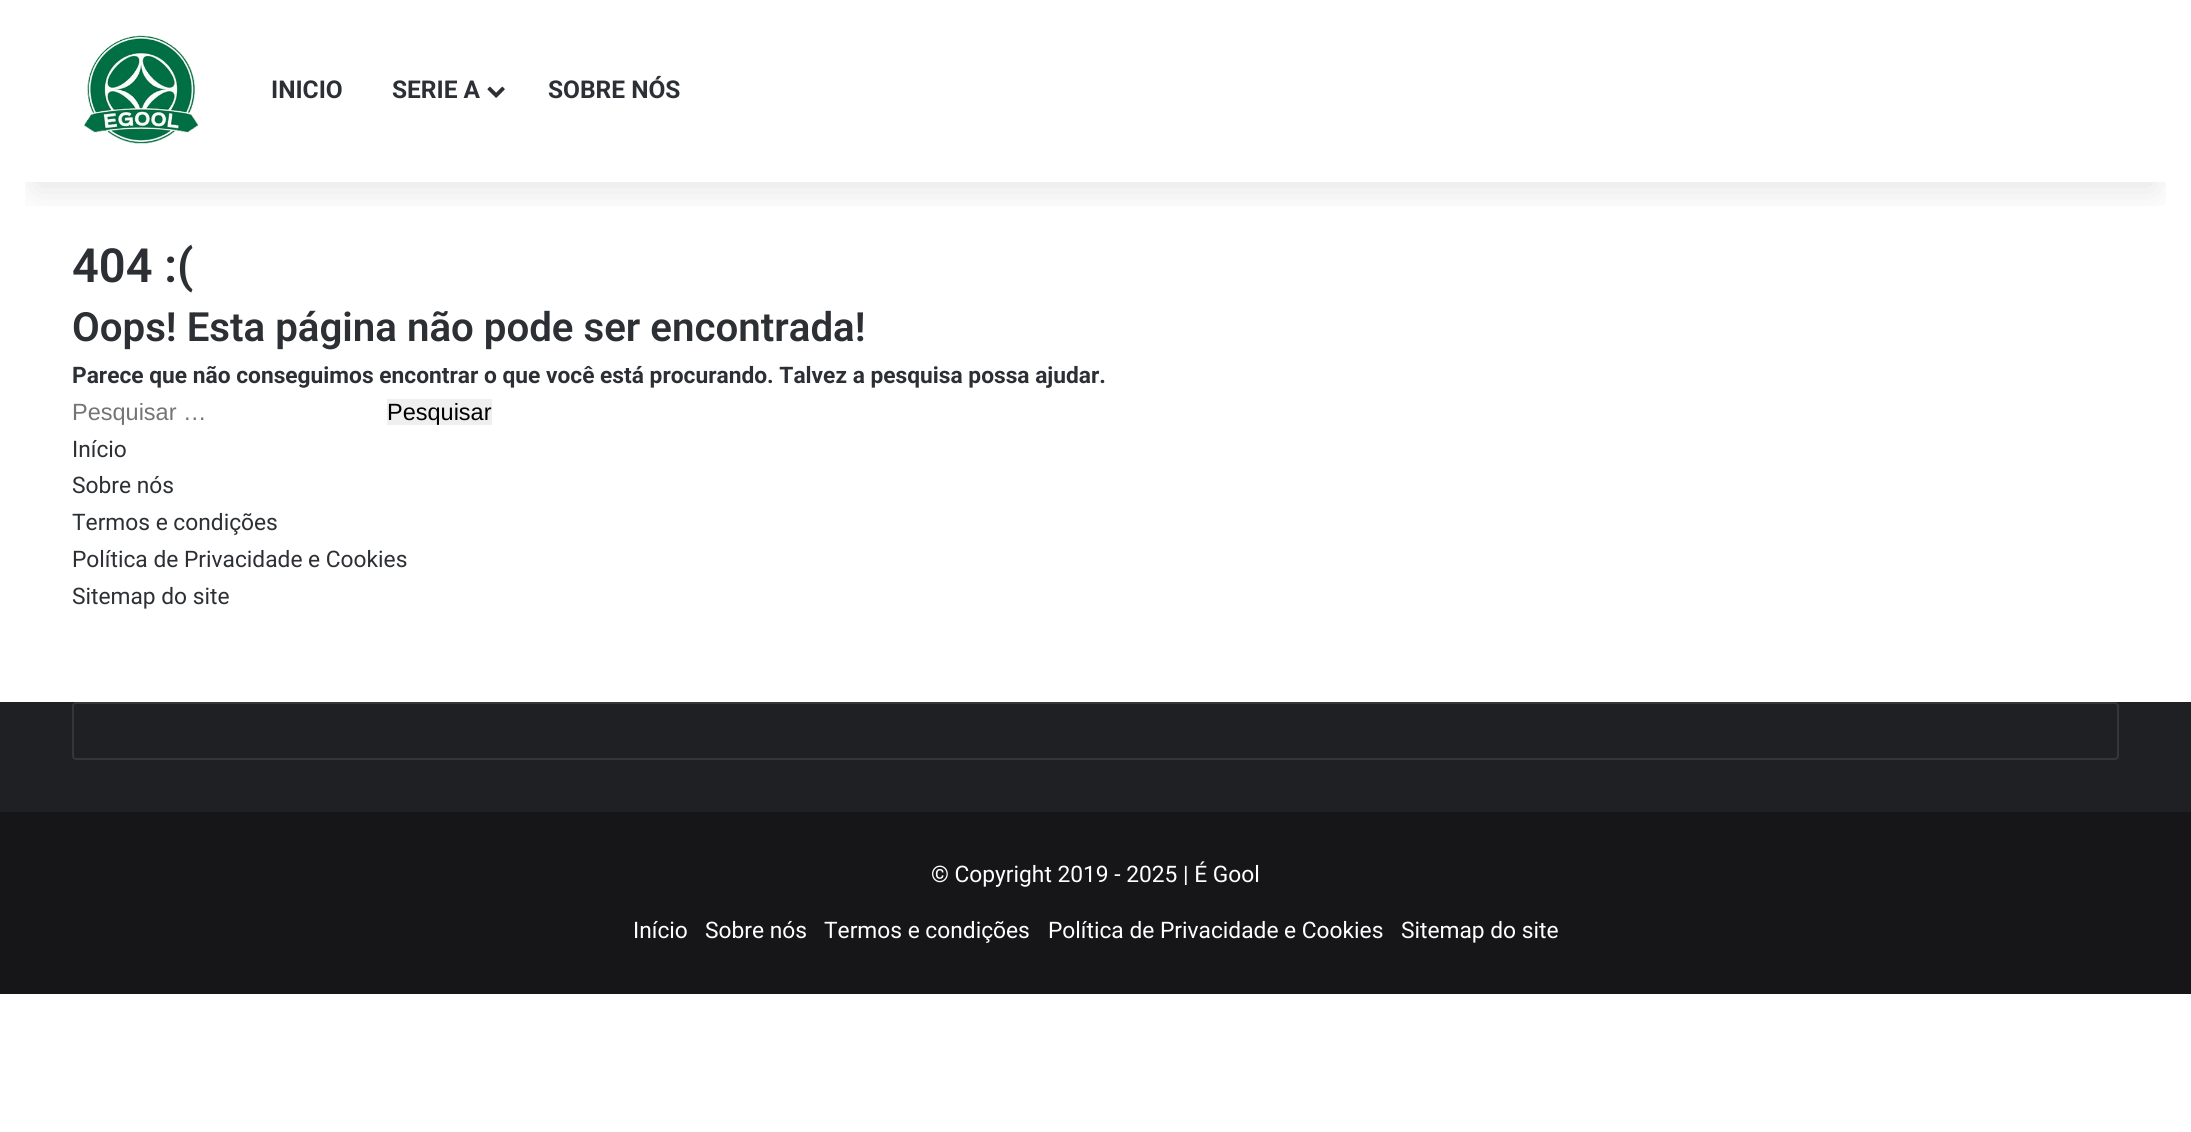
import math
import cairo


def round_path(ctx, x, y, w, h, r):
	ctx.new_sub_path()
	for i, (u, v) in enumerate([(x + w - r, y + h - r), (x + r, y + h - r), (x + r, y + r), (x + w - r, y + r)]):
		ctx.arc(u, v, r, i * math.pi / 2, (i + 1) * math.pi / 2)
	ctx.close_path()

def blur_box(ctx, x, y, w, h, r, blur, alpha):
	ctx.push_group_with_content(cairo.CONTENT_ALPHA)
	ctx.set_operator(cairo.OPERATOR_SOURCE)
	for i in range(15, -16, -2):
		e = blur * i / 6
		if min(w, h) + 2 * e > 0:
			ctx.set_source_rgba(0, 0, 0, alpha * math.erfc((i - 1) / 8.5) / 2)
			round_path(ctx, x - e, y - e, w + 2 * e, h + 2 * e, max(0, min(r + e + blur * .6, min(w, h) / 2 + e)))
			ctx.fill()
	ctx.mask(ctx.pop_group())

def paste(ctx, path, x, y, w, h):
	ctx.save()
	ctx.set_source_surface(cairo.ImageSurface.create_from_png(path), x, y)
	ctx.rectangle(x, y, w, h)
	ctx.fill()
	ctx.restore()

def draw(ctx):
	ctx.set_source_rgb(1, 1, 1)
	ctx.paint()
	ctx.save()
	ctx.rectangle(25, 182, 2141, 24)
	ctx.clip()
	ctx.set_source_rgb(0, 0, 0)
	blur_box(ctx, 35, 77, 2121, 114, 0, 17.5, 0.1)
	ctx.restore()
	paste(ctx, 'media/1.png', 84, 35, 115, 109)
	ctx.select_font_face('Roboto', cairo.FONT_SLANT_NORMAL, cairo.FONT_WEIGHT_BOLD)
	ctx.set_font_size(24.5)
	ctx.set_source_rgb(0.173, 0.184, 0.204)
	ctx.move_to(271, 98)
	ctx.show_text('INICIO')
	ctx.move_to(392, 98)
	ctx.show_text('SERIE A')
	paste(ctx, 'media/2.png', 487, 86, 18, 12)
	ctx.move_to(548, 98)
	ctx.show_text('SOBRE NÓS')
	ctx.select_font_face('Roboto SemiBold')
	ctx.set_font_size(47)
	ctx.move_to(72, 282)
	ctx.show_text('404 :(')
	ctx.set_font_size(40.25)
	ctx.move_to(72, 341)
	ctx.show_text('Oops! Esta página não pode ser encontrada!')
	ctx.select_font_face('Roboto', cairo.FONT_SLANT_NORMAL, cairo.FONT_WEIGHT_BOLD)
	ctx.set_font_size(22.75)
	ctx.move_to(72, 383)
	ctx.show_text('Parece que não conseguimos encontrar o que você está procurando. Talvez a pesquisa possa ajudar.')
	ctx.select_font_face('Liberation Sans')
	ctx.set_font_size(23.5)
	ctx.set_source_rgb(0.459, 0.459, 0.459)
	ctx.move_to(72, 420)
	ctx.show_text('Pesquisar …')
	ctx.set_source_rgb(0.937, 0.937, 0.937)
	ctx.rectangle(387, 399, 105, 26)
	ctx.fill()
	ctx.set_source_rgb(0, 0, 0)
	ctx.move_to(387, 420)
	ctx.show_text('Pesquisar')
	ctx.select_font_face('Roboto')
	ctx.set_font_size(22.75)
	ctx.set_source_rgb(0.173, 0.184, 0.204)
	for x, y, s in [
		(72, 457, 'Início'),
		(72, 493, 'Sobre nós'),
		(72, 530, 'Termos e condições'),
		(72, 567, 'Política de Privacidade e Cookies'),
		(72, 604, 'Sitemap do site'),
	]:
		ctx.move_to(x, y)
		ctx.show_text(s)
	ctx.set_source_rgb(0.122, 0.125, 0.141)
	ctx.rectangle(0, 702, 2191, 110)
	ctx.fill()
	round_path(ctx, 73, 703, 2045, 56, 3)
	ctx.set_source_rgb(0.208, 0.212, 0.227)
	ctx.stroke()
	ctx.set_source_rgb(0.086, 0.086, 0.098)
	ctx.rectangle(0, 812, 2191, 182)
	ctx.fill()
	ctx.set_source_rgb(1, 1, 1)
	for x, y, s in [
		(931, 882, '© Copyright 2019 - 2025 | É Gool'),
		(633, 938, 'Início'),
		(705, 938, 'Sobre nós'),
		(824, 938, 'Termos e condições'),
		(1048, 938, 'Política de Privacidade e Cookies'),
		(1401, 938, 'Sitemap do site'),
	]:
		ctx.move_to(x, y)
		ctx.show_text(s)


surface = cairo.ImageSurface(cairo.FORMAT_RGB24, 2191, 1132)
ctx = cairo.Context(surface)
options = cairo.FontOptions()
options.set_hint_metrics(cairo.HINT_METRICS_OFF)
options.set_hint_style(cairo.HINT_STYLE_NONE)
ctx.set_font_options(options)
ctx.set_miter_limit(4)
draw(ctx)
surface.write_to_png('image.png')
